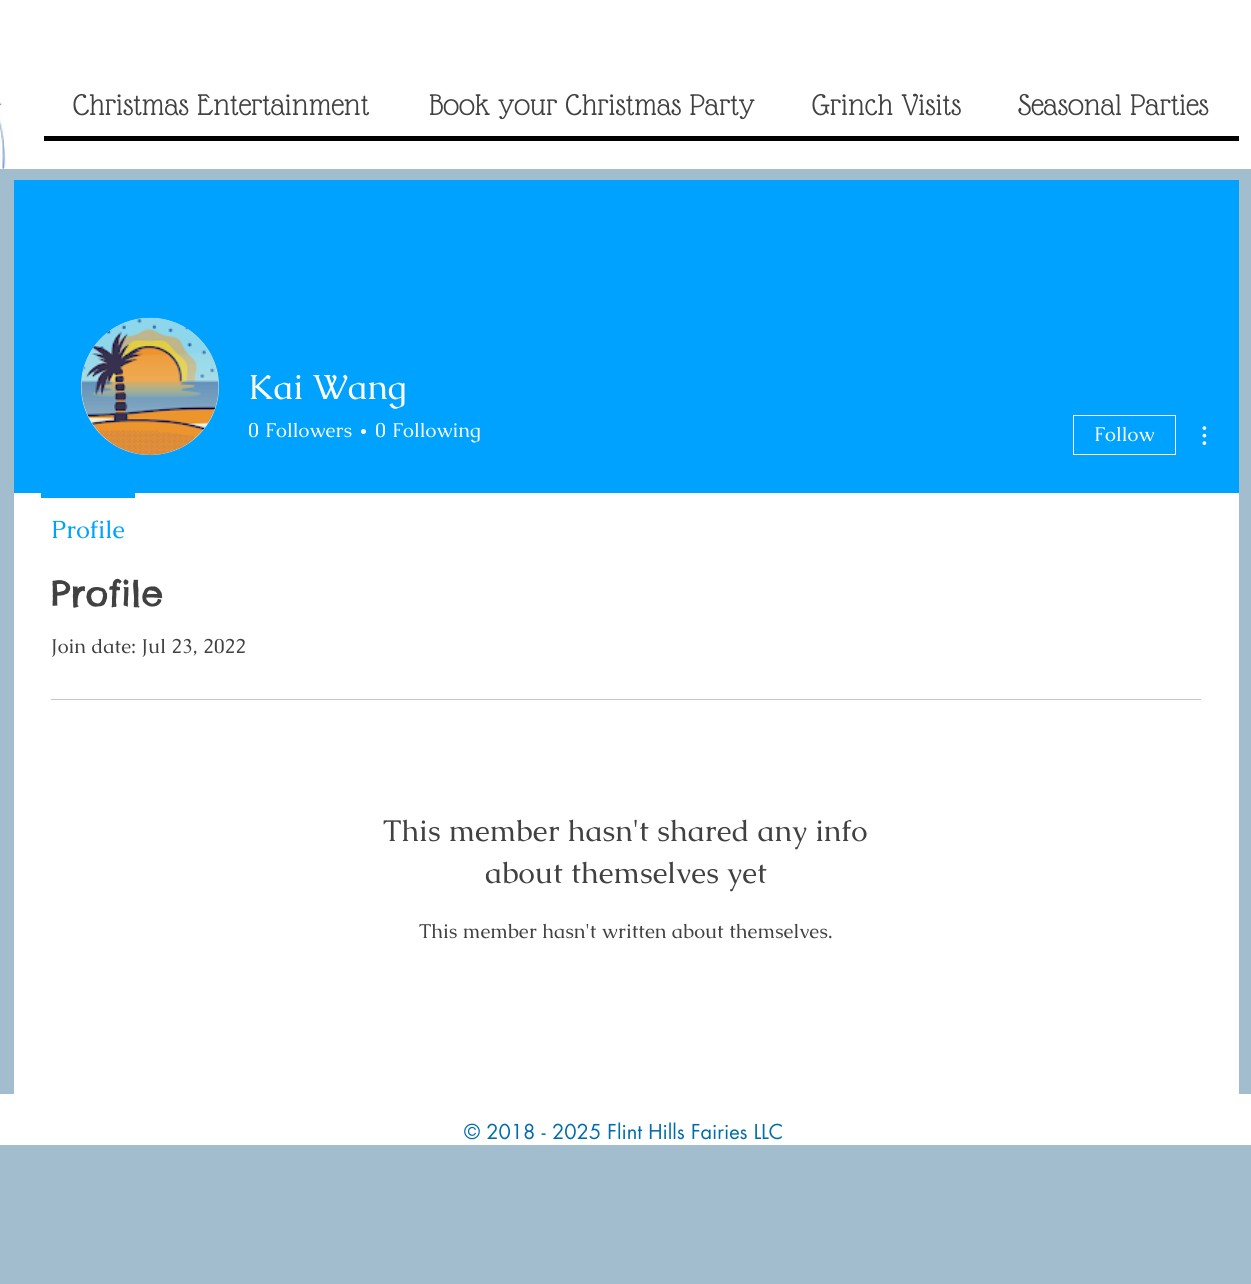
import math
import cairo


def round_path(ctx, x, y, w, h, r):
	ctx.new_sub_path()
	for i, (u, v) in enumerate([(x + w - r, y + h - r), (x + r, y + h - r), (x + r, y + r), (x + w - r, y + r)]):
		ctx.arc(u, v, r, i * math.pi / 2, (i + 1) * math.pi / 2)
	ctx.close_path()

def paste(ctx, path, x, y, w, h):
	ctx.save()
	ctx.set_source_surface(cairo.ImageSurface.create_from_png(path), x, y)
	ctx.rectangle(x, y, w, h)
	ctx.fill()
	ctx.restore()

def draw(ctx):
	ctx.set_source_rgb(0.635, 0.745, 0.808)
	ctx.paint()
	ctx.set_source_rgb(1, 1, 1)
	ctx.rectangle(0, 0, 1251, 169)
	ctx.fill()
	paste(ctx, 'media/1.png', 0, 102, 6, 67)
	ctx.set_source_rgb(0, 0, 0)
	ctx.new_path()
	ctx.move_to(44, 136)
	ctx.line_to(44, 141)
	ctx.line_to(1239, 141)
	ctx.line_to(1239, 79)
	ctx.line_to(1239, 136)
	ctx.close_path()
	ctx.fill()
	ctx.select_font_face('Glass Antiqua')
	ctx.set_font_size(32.5)
	ctx.set_source_rgb(0.255, 0.255, 0.255)
	for x, y, s in [
		(73, 115, 'Christmas Entertainment'),
		(429, 115, 'Book your Christmas Party'),
		(812, 115, 'Grinch Visits'),
		(1018, 115, 'Seasonal Parties'),
	]:
		ctx.move_to(x, y)
		ctx.show_text(s)
	ctx.set_source_rgb(0, 0.635, 1)
	ctx.rectangle(14, 180, 1225, 313)
	ctx.fill()
	ctx.set_source_rgb(0.847, 0.847, 0.847)
	round_path(ctx, 81, 318, 138, 137, 68.5)
	ctx.fill()
	paste(ctx, 'media/2.png', 81, 317, 138, 138)
	ctx.select_font_face('Caudex')
	ctx.set_font_size(35)
	ctx.set_source_rgb(1, 1, 1)
	ctx.move_to(248, 399)
	ctx.show_text('Kai Wang')
	ctx.set_font_size(20)
	ctx.move_to(248, 437)
	ctx.show_text('0')
	ctx.move_to(265, 437)
	ctx.show_text('Followers')
	ctx.new_path()
	ctx.arc(363.5, 431.5, 2.5, 0, 2 * math.pi)
	ctx.fill()
	ctx.move_to(375, 437)
	ctx.show_text('0')
	ctx.move_to(392, 437)
	ctx.show_text('Following')
	ctx.rectangle(1073.5, 415.5, 102, 39)
	ctx.set_line_width(1)
	ctx.stroke()
	ctx.move_to(1094, 441)
	ctx.show_text('Follow')
	paste(ctx, 'media/3.png', 1202, 426, 5, 19)
	ctx.rectangle(14, 493, 1225, 601)
	ctx.fill()
	ctx.set_source_rgb(0, 0.635, 1)
	ctx.rectangle(41, 493, 94, 5)
	ctx.fill()
	ctx.set_font_size(25)
	ctx.move_to(51, 538)
	ctx.show_text('Profile')
	ctx.select_font_face('Chelsea Market')
	ctx.set_font_size(35)
	ctx.set_source_rgb(0.255, 0.255, 0.255)
	ctx.move_to(51, 606)
	ctx.show_text('Profile')
	ctx.select_font_face('Caudex')
	ctx.set_font_size(20)
	ctx.move_to(51, 653)
	ctx.show_text('Join date: Jul 23, 2022')
	ctx.set_source_rgb(0.776, 0.776, 0.776)
	ctx.rectangle(51, 699, 1150, 1)
	ctx.fill()
	ctx.set_font_size(30)
	ctx.set_source_rgb(0.255, 0.255, 0.255)
	ctx.move_to(383, 841)
	ctx.show_text('This member hasn\'t shared any info')
	ctx.move_to(485, 883)
	ctx.show_text('about themselves yet')
	ctx.set_font_size(20)
	ctx.move_to(419, 938)
	ctx.show_text('This member hasn\'t written about themselves.')
	ctx.set_source_rgb(1, 1, 1)
	ctx.rectangle(0, 1094, 1251, 51)
	ctx.fill()
	ctx.select_font_face('futura')
	ctx.set_source_rgb(0, 0.424, 0.667)
	ctx.move_to(464, 1139)
	ctx.show_text('© 2018 - 2025 Flint Hills Fairies LLC')


surface = cairo.ImageSurface(cairo.FORMAT_RGB24, 1251, 1284)
ctx = cairo.Context(surface)
options = cairo.FontOptions()
options.set_hint_metrics(cairo.HINT_METRICS_OFF)
options.set_hint_style(cairo.HINT_STYLE_NONE)
ctx.set_font_options(options)
ctx.set_miter_limit(4)
draw(ctx)
surface.write_to_png('image.png')
